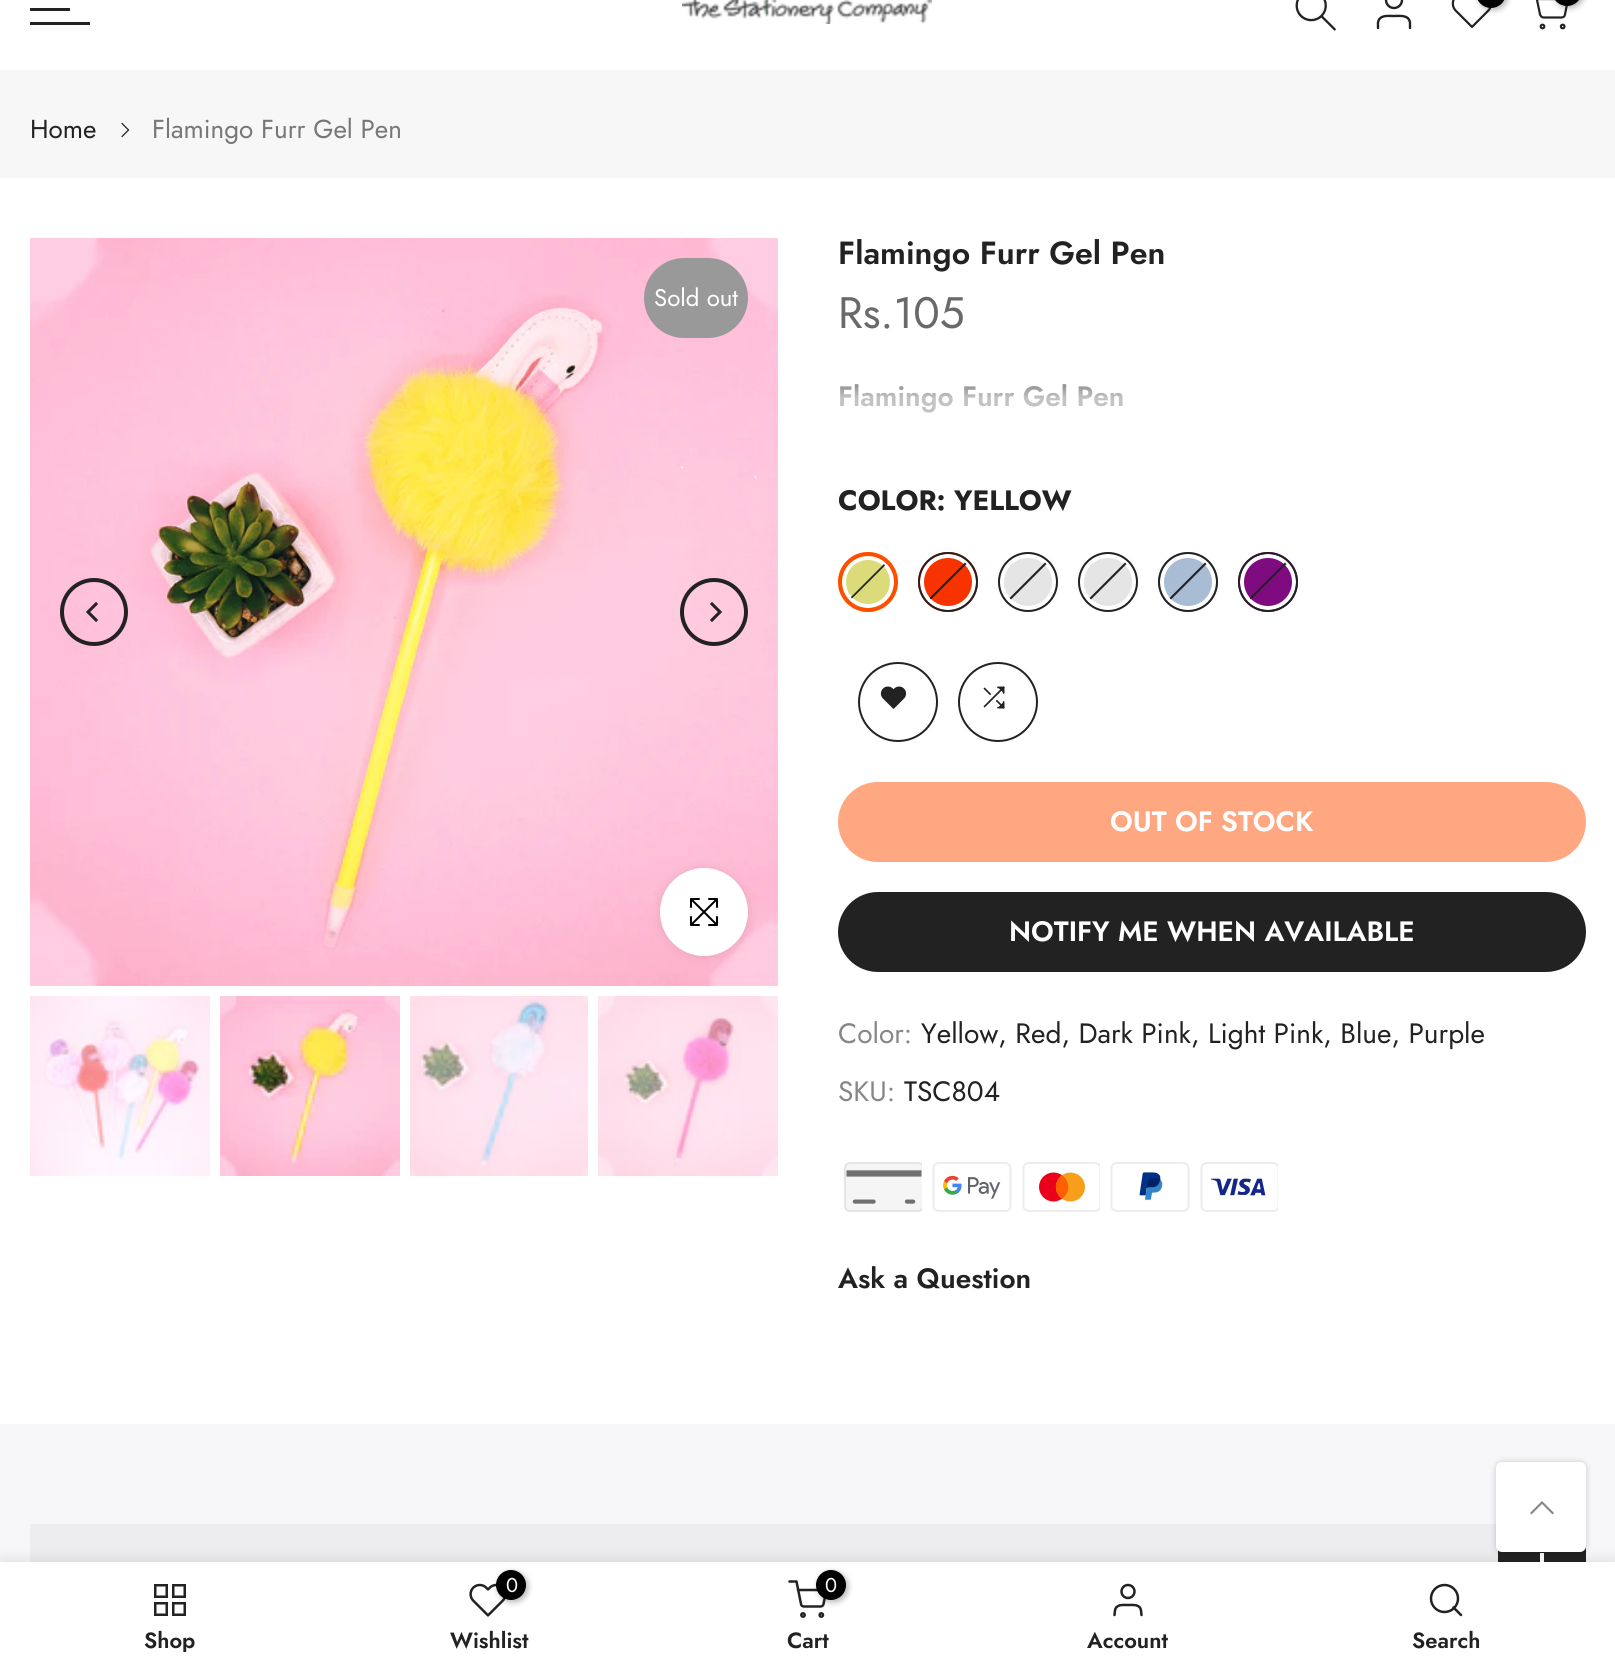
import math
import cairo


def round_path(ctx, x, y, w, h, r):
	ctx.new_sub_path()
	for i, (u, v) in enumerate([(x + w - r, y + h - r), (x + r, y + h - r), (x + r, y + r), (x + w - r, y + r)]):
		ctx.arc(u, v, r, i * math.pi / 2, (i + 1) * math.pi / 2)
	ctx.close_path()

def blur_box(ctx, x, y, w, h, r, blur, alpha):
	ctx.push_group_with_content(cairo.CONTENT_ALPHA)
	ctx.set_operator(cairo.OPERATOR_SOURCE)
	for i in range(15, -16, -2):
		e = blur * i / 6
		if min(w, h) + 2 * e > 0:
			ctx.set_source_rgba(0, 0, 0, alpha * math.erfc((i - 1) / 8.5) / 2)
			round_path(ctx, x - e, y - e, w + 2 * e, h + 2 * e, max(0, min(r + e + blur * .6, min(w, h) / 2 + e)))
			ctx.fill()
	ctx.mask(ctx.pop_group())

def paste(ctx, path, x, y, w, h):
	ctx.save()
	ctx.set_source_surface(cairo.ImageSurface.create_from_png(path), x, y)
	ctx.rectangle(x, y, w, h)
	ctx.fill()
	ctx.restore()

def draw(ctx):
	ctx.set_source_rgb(1, 1, 1)
	ctx.paint()
	ctx.set_source_rgb(0.133, 0.133, 0.133)
	ctx.rectangle(30, 8, 40, 3)
	ctx.fill()
	ctx.rectangle(30, 22, 60, 3)
	ctx.fill()
	paste(ctx, 'media/1.png', 682, 0, 250, 24)
	paste(ctx, 'media/2.png', 1295, 0, 41, 31)
	ctx.arc(1394, 0, 8, 0, 2 * math.pi)
	ctx.set_line_width(2.4)
	ctx.stroke()
	ctx.new_path()
	ctx.move_to(1410, 28)
	ctx.line_to(1410, 22.5)
	ctx.curve_to(1408.5, 14.5, 1400, 16, 1394, 16)
	ctx.curve_to(1388, 16, 1379.5, 14.5, 1378, 22.5)
	ctx.line_to(1378, 28)
	ctx.set_line_cap(cairo.LINE_CAP_ROUND)
	ctx.set_line_join(cairo.LINE_JOIN_ROUND)
	ctx.stroke()
	paste(ctx, 'media/3.png', 1451, 0, 41, 28)
	ctx.set_source_rgb(0, 0, 0)
	blur_box(ctx, 1478, -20, 30, 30, 15, 3, 0.3)
	ctx.set_source_rgb(0, 0, 0)
	round_path(ctx, 1476, -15, 30, 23, 15)
	ctx.fill()
	ctx.new_path()
	ctx.move_to(1528, -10)
	ctx.line_to(1535, -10)
	ctx.line_to(1540, 14.5)
	ctx.curve_to(1540.5, 16, 1542, 17.5, 1543.5, 17.5)
	ctx.line_to(1561.5, 17.5)
	ctx.curve_to(1563.5, 17.5, 1565, 16, 1565, 14.5)
	ctx.line_to(1568, -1)
	ctx.line_to(1537, -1)
	ctx.set_source_rgb(0.133, 0.133, 0.133)
	ctx.set_line_width(2.2)
	ctx.stroke()
	ctx.set_source_rgb(0, 0, 0)
	blur_box(ctx, 1554, -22, 30, 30, 15, 3, 0.3)
	ctx.set_source_rgb(0, 0, 0)
	round_path(ctx, 1552, -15, 30, 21, 15)
	ctx.fill()
	ctx.arc(1542.5, 26.5, 1.8, 0, 2 * math.pi)
	ctx.set_source_rgb(0.133, 0.133, 0.133)
	ctx.set_line_cap(cairo.LINE_CAP_BUTT)
	ctx.set_line_join(cairo.LINE_JOIN_MITER)
	ctx.stroke()
	ctx.arc(1562.7, 26.5, 1.8, 0, 2 * math.pi)
	ctx.stroke()
	ctx.set_source_rgb(0.965, 0.965, 0.965)
	ctx.rectangle(0, 70, 1615, 108)
	ctx.fill()
	ctx.select_font_face('Jost')
	ctx.set_font_size(26)
	ctx.set_source_rgb(0.133, 0.133, 0.133)
	ctx.move_to(30, 138)
	ctx.show_text('Home')
	paste(ctx, 'media/4.png', 121, 122, 9, 16)
	ctx.set_source_rgb(0.467, 0.467, 0.467)
	ctx.move_to(152, 138)
	ctx.show_text('Flamingo Furr Gel Pen')
	paste(ctx, 'media/5.png', 30, 238, 748, 748)
	ctx.arc(94, 612, 32, 0, 2 * math.pi)
	ctx.set_source_rgb(0.133, 0.133, 0.133)
	ctx.set_line_width(4)
	ctx.stroke()
	paste(ctx, 'media/6.png', 86, 602, 12, 20)
	ctx.arc(714, 612, 32, 0, 2 * math.pi)
	ctx.stroke()
	paste(ctx, 'media/7.png', 710, 602, 12, 20)
	ctx.set_source_rgb(0.6, 0.6, 0.6)
	round_path(ctx, 644, 258, 104, 80, 40)
	ctx.fill()
	ctx.set_font_size(24)
	ctx.set_source_rgb(1, 1, 1)
	ctx.move_to(654, 306)
	ctx.show_text('Sold out')
	ctx.set_source_rgb(0, 0, 0)
	blur_box(ctx, 660, 868, 88, 88, 44, 5, 0.09)
	ctx.set_source_rgb(1, 1, 1)
	ctx.arc(704, 912, 44, 0, 2 * math.pi)
	ctx.fill()
	paste(ctx, 'media/8.png', 690, 898, 28, 28)
	paste(ctx, 'media/9.png', 30, 996, 180, 180)
	paste(ctx, 'media/10.png', 220, 996, 180, 180)
	paste(ctx, 'media/11.png', 410, 996, 178, 180)
	paste(ctx, 'media/12.png', 598, 996, 180, 180)
	ctx.select_font_face('Jost SemiBold')
	ctx.set_font_size(32)
	ctx.set_source_rgb(0.133, 0.133, 0.133)
	ctx.move_to(838, 264)
	ctx.show_text('Flamingo Furr Gel Pen')
	ctx.select_font_face('Jost')
	ctx.set_font_size(44)
	ctx.set_source_rgb(0.412, 0.412, 0.412)
	ctx.move_to(838, 328)
	ctx.show_text('Rs.105')
	ctx.select_font_face('Jost SemiBold')
	ctx.set_font_size(28)
	ctx.set_source_rgb(0.529, 0.529, 0.529)
	ctx.move_to(838, 406)
	ctx.show_text('Flamingo Furr Gel Pen')
	gradient = cairo.LinearGradient(1212, 422, 1212, 382)
	gradient.add_color_stop_rgba(0.6, 1, 1, 1, 0.5)
	gradient.add_color_stop_rgba(1, 1, 1, 1, 0)
	ctx.set_source(gradient)
	ctx.rectangle(840, 384, 283, 29)
	ctx.fill()
	ctx.select_font_face('Jost', cairo.FONT_SLANT_NORMAL, cairo.FONT_WEIGHT_BOLD)
	ctx.set_source_rgb(0.133, 0.133, 0.133)
	ctx.move_to(838, 510)
	ctx.show_text('COLOR: YELLOW')
	ctx.set_source_rgb(0.863, 0.859, 0.475)
	ctx.new_path()
	ctx.arc(868, 582, 30, 0, 2 * math.pi)
	ctx.fill()
	ctx.arc(868, 582, 24, 0, 2 * math.pi)
	ctx.set_source_rgb(1, 1, 1)
	ctx.stroke()
	ctx.arc(868, 582, 28, 0, 2 * math.pi)
	ctx.set_source_rgb(1, 0.306, 0)
	ctx.stroke()
	ctx.set_source_rgb(0.133, 0.133, 0.133)
	ctx.new_path()
	ctx.move_to(885, 565.5)
	ctx.line_to(852, 598.5)
	ctx.line_to(851, 597)
	ctx.line_to(884, 564)
	ctx.close_path()
	ctx.fill()
	ctx.set_source_rgb(0.965, 0.204, 0)
	ctx.arc(948, 582, 30, 0, 2 * math.pi)
	ctx.fill()
	ctx.arc(948, 582, 26, 0, 2 * math.pi)
	ctx.set_source_rgb(1, 1, 1)
	ctx.stroke()
	ctx.arc(948, 582, 29, 0, 2 * math.pi)
	ctx.set_source_rgb(0.133, 0.133, 0.133)
	ctx.set_line_width(2)
	ctx.stroke()
	ctx.new_path()
	ctx.move_to(966.5, 564)
	ctx.line_to(931, 599.5)
	ctx.line_to(929.5, 598)
	ctx.line_to(965, 562.5)
	ctx.close_path()
	ctx.fill()
	ctx.set_source_rgb(0.898, 0.898, 0.898)
	ctx.arc(1028, 582, 30, 0, 2 * math.pi)
	ctx.fill()
	ctx.arc(1028, 582, 26, 0, 2 * math.pi)
	ctx.set_source_rgb(1, 1, 1)
	ctx.set_line_width(4)
	ctx.stroke()
	ctx.arc(1028, 582, 29, 0, 2 * math.pi)
	ctx.set_source_rgb(0.133, 0.133, 0.133)
	ctx.set_line_width(2)
	ctx.stroke()
	ctx.new_path()
	ctx.move_to(1046.5, 564)
	ctx.line_to(1011, 599.5)
	ctx.line_to(1009.5, 598)
	ctx.line_to(1045, 562.5)
	ctx.close_path()
	ctx.fill()
	ctx.set_source_rgb(0.898, 0.898, 0.898)
	ctx.arc(1108, 582, 30, 0, 2 * math.pi)
	ctx.fill()
	ctx.arc(1108, 582, 26, 0, 2 * math.pi)
	ctx.set_source_rgb(1, 1, 1)
	ctx.set_line_width(4)
	ctx.stroke()
	ctx.arc(1108, 582, 29, 0, 2 * math.pi)
	ctx.set_source_rgb(0.133, 0.133, 0.133)
	ctx.set_line_width(2)
	ctx.stroke()
	ctx.new_path()
	ctx.move_to(1126.5, 564)
	ctx.line_to(1091, 599.5)
	ctx.line_to(1089.5, 598)
	ctx.line_to(1125, 562.5)
	ctx.close_path()
	ctx.fill()
	ctx.set_source_rgb(0.659, 0.737, 0.831)
	ctx.arc(1188, 582, 30, 0, 2 * math.pi)
	ctx.fill()
	ctx.arc(1188, 582, 26, 0, 2 * math.pi)
	ctx.set_source_rgb(1, 1, 1)
	ctx.set_line_width(4)
	ctx.stroke()
	ctx.arc(1188, 582, 29, 0, 2 * math.pi)
	ctx.set_source_rgb(0.133, 0.133, 0.133)
	ctx.set_line_width(2)
	ctx.stroke()
	ctx.new_path()
	ctx.move_to(1206.5, 564)
	ctx.line_to(1171, 599.5)
	ctx.line_to(1169.5, 598)
	ctx.line_to(1205, 562.5)
	ctx.close_path()
	ctx.fill()
	ctx.set_source_rgb(0.494, 0.043, 0.502)
	ctx.arc(1268, 582, 30, 0, 2 * math.pi)
	ctx.fill()
	ctx.arc(1268, 582, 26, 0, 2 * math.pi)
	ctx.set_source_rgb(1, 1, 1)
	ctx.set_line_width(4)
	ctx.stroke()
	ctx.arc(1268, 582, 29, 0, 2 * math.pi)
	ctx.set_source_rgb(0.133, 0.133, 0.133)
	ctx.set_line_width(2)
	ctx.stroke()
	ctx.new_path()
	ctx.move_to(1286.5, 564)
	ctx.line_to(1251, 599.5)
	ctx.line_to(1249.5, 598)
	ctx.line_to(1285, 562.5)
	ctx.close_path()
	ctx.fill()
	ctx.arc(898, 702, 39, 0, 2 * math.pi)
	ctx.stroke()
	paste(ctx, 'media/13.png', 880, 686, 27, 23)
	ctx.arc(998, 702, 39, 0, 2 * math.pi)
	ctx.stroke()
	paste(ctx, 'media/14.png', 983, 686, 22, 23)
	ctx.set_source_rgb(1, 0.655, 0.502)
	round_path(ctx, 838, 782, 748, 80, 40)
	ctx.fill()
	ctx.select_font_face('Jost SemiBold')
	ctx.set_source_rgb(1, 1, 1)
	ctx.move_to(1110, 831)
	ctx.show_text('OUT OF STOCK')
	ctx.set_source_rgb(0.133, 0.133, 0.133)
	round_path(ctx, 838, 892, 748, 80, 40)
	ctx.fill()
	ctx.set_source_rgb(1, 1, 1)
	ctx.move_to(1009, 941)
	ctx.show_text('NOTIFY ME WHEN AVAILABLE')
	ctx.select_font_face('Jost')
	ctx.set_source_rgb(0.529, 0.529, 0.529)
	ctx.move_to(838, 1043)
	ctx.show_text('Color:')
	ctx.set_source_rgb(0.133, 0.133, 0.133)
	ctx.move_to(921, 1043)
	ctx.show_text('Yellow, Red, Dark Pink, Light Pink, Blue, Purple')
	ctx.set_source_rgb(0.529, 0.529, 0.529)
	ctx.move_to(838, 1101)
	ctx.show_text('SKU:')
	ctx.set_source_rgb(0.133, 0.133, 0.133)
	ctx.move_to(904, 1101)
	ctx.show_text('TSC804')
	paste(ctx, 'media/15.png', 844, 1162, 78, 50)
	paste(ctx, 'media/16.png', 932, 1162, 80, 50)
	paste(ctx, 'media/17.png', 1022, 1162, 78, 50)
	paste(ctx, 'media/18.png', 1110, 1162, 80, 50)
	paste(ctx, 'media/19.png', 1200, 1162, 78, 50)
	ctx.select_font_face('Jost SemiBold')
	ctx.move_to(838, 1288)
	ctx.show_text('Ask a Question')
	ctx.set_source_rgb(0.965, 0.965, 0.973)
	ctx.rectangle(0, 1424, 1615, 138)
	ctx.fill()
	ctx.set_source_rgb(0.929, 0.929, 0.937)
	ctx.rectangle(30, 1524, 1468, 38)
	ctx.fill()
	ctx.set_source_rgb(0.133, 0.133, 0.133)
	ctx.rectangle(1498, 1546, 88, 16)
	ctx.fill()
	ctx.set_source_rgb(1, 1, 1)
	ctx.rectangle(1540, 1553, 4, 9)
	ctx.fill()
	ctx.set_source_rgb(0, 0, 0)
	blur_box(ctx, 1496, 1462, 90, 90, 6, 3, 0.2)
	blur_box(ctx, 0, 1562, 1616, 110, 0, 9, 0.12)
	ctx.set_source_rgb(1, 1, 1)
	round_path(ctx, 1496, 1462, 90, 90, 6)
	ctx.fill()
	ctx.set_source_rgb(0.529, 0.529, 0.529)
	ctx.new_path()
	ctx.move_to(1543.5, 1502.5)
	ctx.line_to(1542, 1501)
	ctx.line_to(1530, 1513)
	ctx.line_to(1531.5, 1514.5)
	ctx.line_to(1542, 1504)
	ctx.line_to(1552.5, 1514.5)
	ctx.line_to(1554, 1513)
	ctx.line_to(1548, 1507)
	ctx.close_path()
	ctx.fill()
	ctx.set_source_rgb(1, 1, 1)
	ctx.rectangle(0, 1562, 1615, 109)
	ctx.fill()
	ctx.rectangle(155.25, 1585.25, 11.5, 11.5)
	ctx.set_source_rgb(0.133, 0.133, 0.133)
	ctx.set_line_width(2.5)
	ctx.stroke()
	ctx.rectangle(173.25, 1585.25, 11.5, 11.5)
	ctx.stroke()
	ctx.rectangle(155.25, 1603.25, 11.5, 11.5)
	ctx.stroke()
	ctx.rectangle(173.25, 1603.25, 11.5, 11.5)
	ctx.stroke()
	ctx.save()
	ctx.rectangle(30, 1630, 280, 22)
	ctx.clip()
	ctx.set_font_size(22)
	ctx.move_to(144, 1648)
	ctx.show_text('Shop')
	ctx.restore()
	paste(ctx, 'media/20.png', 469, 1583, 37, 34)
	ctx.set_source_rgb(0, 0, 0)
	blur_box(ctx, 498, 1572, 30, 30, 15, 3, 0.3)
	ctx.set_source_rgb(0, 0, 0)
	ctx.arc(511, 1585, 15, 0, 2 * math.pi)
	ctx.fill()
	ctx.select_font_face('Jost')
	ctx.set_font_size(20)
	ctx.set_source_rgb(1, 1, 1)
	ctx.move_to(506, 1592)
	ctx.show_text('0')
	ctx.select_font_face('Jost SemiBold')
	ctx.set_font_size(22)
	ctx.set_source_rgb(0.133, 0.133, 0.133)
	ctx.move_to(450, 1648)
	ctx.show_text('Wishlist')
	ctx.new_path()
	ctx.move_to(789.5, 1581.5)
	ctx.line_to(796.5, 1581.5)
	ctx.line_to(801, 1604)
	ctx.curve_to(801, 1605.5, 802.5, 1606.5, 804, 1606.5)
	ctx.line_to(820.5, 1606.5)
	ctx.curve_to(822, 1606.5, 823.5, 1605.5, 823.5, 1604)
	ctx.line_to(826.5, 1590)
	ctx.line_to(798, 1590)
	ctx.set_line_cap(cairo.LINE_CAP_ROUND)
	ctx.set_line_join(cairo.LINE_JOIN_ROUND)
	ctx.stroke()
	ctx.set_source_rgb(0, 0, 0)
	blur_box(ctx, 818, 1572, 30, 30, 15, 3, 0.3)
	ctx.set_source_rgb(0, 0, 0)
	ctx.arc(831, 1585, 15, 0, 2 * math.pi)
	ctx.fill()
	ctx.select_font_face('Jost')
	ctx.set_font_size(20)
	ctx.set_source_rgb(1, 1, 1)
	ctx.move_to(825, 1592)
	ctx.show_text('0')
	ctx.new_path()
	ctx.arc(803, 1615, 1.7, 0, 2 * math.pi)
	ctx.set_source_rgb(0.133, 0.133, 0.133)
	ctx.set_line_cap(cairo.LINE_CAP_BUTT)
	ctx.set_line_join(cairo.LINE_JOIN_MITER)
	ctx.stroke()
	ctx.arc(821.3, 1615, 1.7, 0, 2 * math.pi)
	ctx.stroke()
	ctx.select_font_face('Jost SemiBold')
	ctx.set_font_size(22)
	ctx.move_to(787, 1648)
	ctx.show_text('Cart')
	ctx.new_path()
	ctx.arc(1128, 1591.5, 6.5, 0, 2 * math.pi)
	ctx.stroke()
	ctx.new_path()
	ctx.move_to(1141.5, 1615)
	ctx.line_to(1141, 1610.5)
	ctx.curve_to(1140, 1604, 1133, 1605, 1128, 1605)
	ctx.curve_to(1123, 1605, 1116, 1604, 1115, 1610.5)
	ctx.line_to(1114.5, 1615)
	ctx.set_line_cap(cairo.LINE_CAP_ROUND)
	ctx.set_line_join(cairo.LINE_JOIN_ROUND)
	ctx.stroke()
	ctx.move_to(1087, 1648)
	ctx.show_text('Account')
	ctx.new_path()
	ctx.arc(1444.5, 1598.5, 13.5, 0, 2 * math.pi)
	ctx.set_line_cap(cairo.LINE_CAP_BUTT)
	ctx.set_line_join(cairo.LINE_JOIN_MITER)
	ctx.stroke()
	ctx.new_path()
	ctx.move_to(1461, 1615)
	ctx.line_to(1453.5, 1607.5)
	ctx.set_line_cap(cairo.LINE_CAP_ROUND)
	ctx.set_line_join(cairo.LINE_JOIN_ROUND)
	ctx.stroke()
	ctx.move_to(1412, 1648)
	ctx.show_text('Search')


surface = cairo.ImageSurface(cairo.FORMAT_RGB24, 1615, 1671)
ctx = cairo.Context(surface)
options = cairo.FontOptions()
options.set_hint_metrics(cairo.HINT_METRICS_OFF)
options.set_hint_style(cairo.HINT_STYLE_NONE)
ctx.set_font_options(options)
ctx.set_miter_limit(4)
draw(ctx)
surface.write_to_png('image.png')
